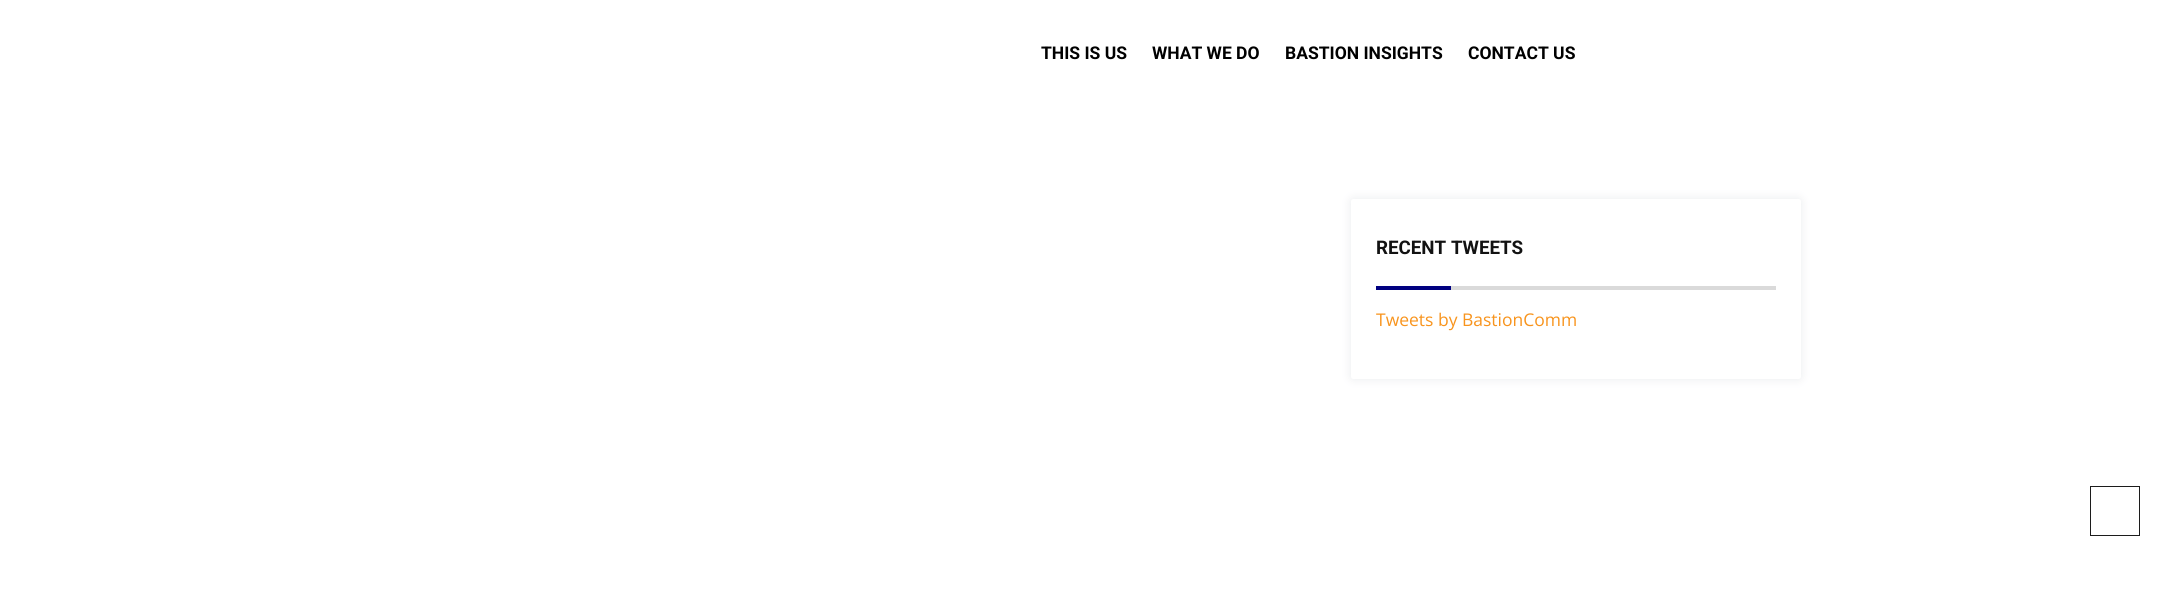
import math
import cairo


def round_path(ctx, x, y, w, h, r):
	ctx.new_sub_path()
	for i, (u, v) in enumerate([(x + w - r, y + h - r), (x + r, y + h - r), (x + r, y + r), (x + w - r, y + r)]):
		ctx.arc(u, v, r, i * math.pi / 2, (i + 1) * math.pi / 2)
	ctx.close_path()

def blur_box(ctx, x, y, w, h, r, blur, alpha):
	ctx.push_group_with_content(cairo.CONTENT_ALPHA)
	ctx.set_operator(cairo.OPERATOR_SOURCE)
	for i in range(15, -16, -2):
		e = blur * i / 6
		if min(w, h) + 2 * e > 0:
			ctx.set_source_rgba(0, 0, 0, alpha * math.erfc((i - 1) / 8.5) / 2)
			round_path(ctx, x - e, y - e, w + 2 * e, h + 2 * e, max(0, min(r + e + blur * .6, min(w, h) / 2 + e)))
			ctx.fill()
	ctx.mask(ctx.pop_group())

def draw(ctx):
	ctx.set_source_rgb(1, 1, 1)
	ctx.paint()
	ctx.select_font_face('Roboto', cairo.FONT_SLANT_NORMAL, cairo.FONT_WEIGHT_BOLD)
	ctx.set_font_size(17.5)
	ctx.set_source_rgb(0, 0, 0)
	for x, y, s in [
		(1041, 59, 'THIS IS US'),
		(1152, 59, 'WHAT WE DO'),
		(1285, 59, 'BASTION INSIGHTS'),
		(1468, 59, 'CONTACT US'),
	]:
		ctx.move_to(x, y)
		ctx.show_text(s)
	ctx.set_source_rgb(0.431, 0.482, 0.549)
	blur_box(ctx, 1351, 199, 450, 180, 2.5, 5, 0.15)
	ctx.set_source_rgb(1, 1, 1)
	round_path(ctx, 1351, 199, 450, 180, 2.5)
	ctx.fill()
	ctx.set_source_rgb(0.855, 0.855, 0.855)
	ctx.rectangle(1451, 286, 325, 4)
	ctx.fill()
	ctx.set_font_size(18.75)
	ctx.set_source_rgb(0.071, 0.071, 0.071)
	ctx.move_to(1376, 254)
	ctx.show_text('RECENT TWEETS')
	ctx.set_source_rgb(0, 0, 0.502)
	ctx.rectangle(1376, 286, 75, 4)
	ctx.fill()
	ctx.select_font_face('Open Sans')
	ctx.set_font_size(17.5)
	ctx.set_source_rgb(0.969, 0.58, 0.114)
	ctx.move_to(1376, 326)
	ctx.show_text('Tweets by BastionComm')
	ctx.rectangle(2090.5, 486.5, 49, 49)
	ctx.set_source_rgb(0.11, 0.11, 0.11)
	ctx.set_line_width(1)
	ctx.stroke()


surface = cairo.ImageSurface(cairo.FORMAT_RGB24, 2177, 598)
ctx = cairo.Context(surface)
options = cairo.FontOptions()
options.set_hint_metrics(cairo.HINT_METRICS_OFF)
options.set_hint_style(cairo.HINT_STYLE_NONE)
ctx.set_font_options(options)
ctx.set_miter_limit(4)
draw(ctx)
surface.write_to_png('image.png')
